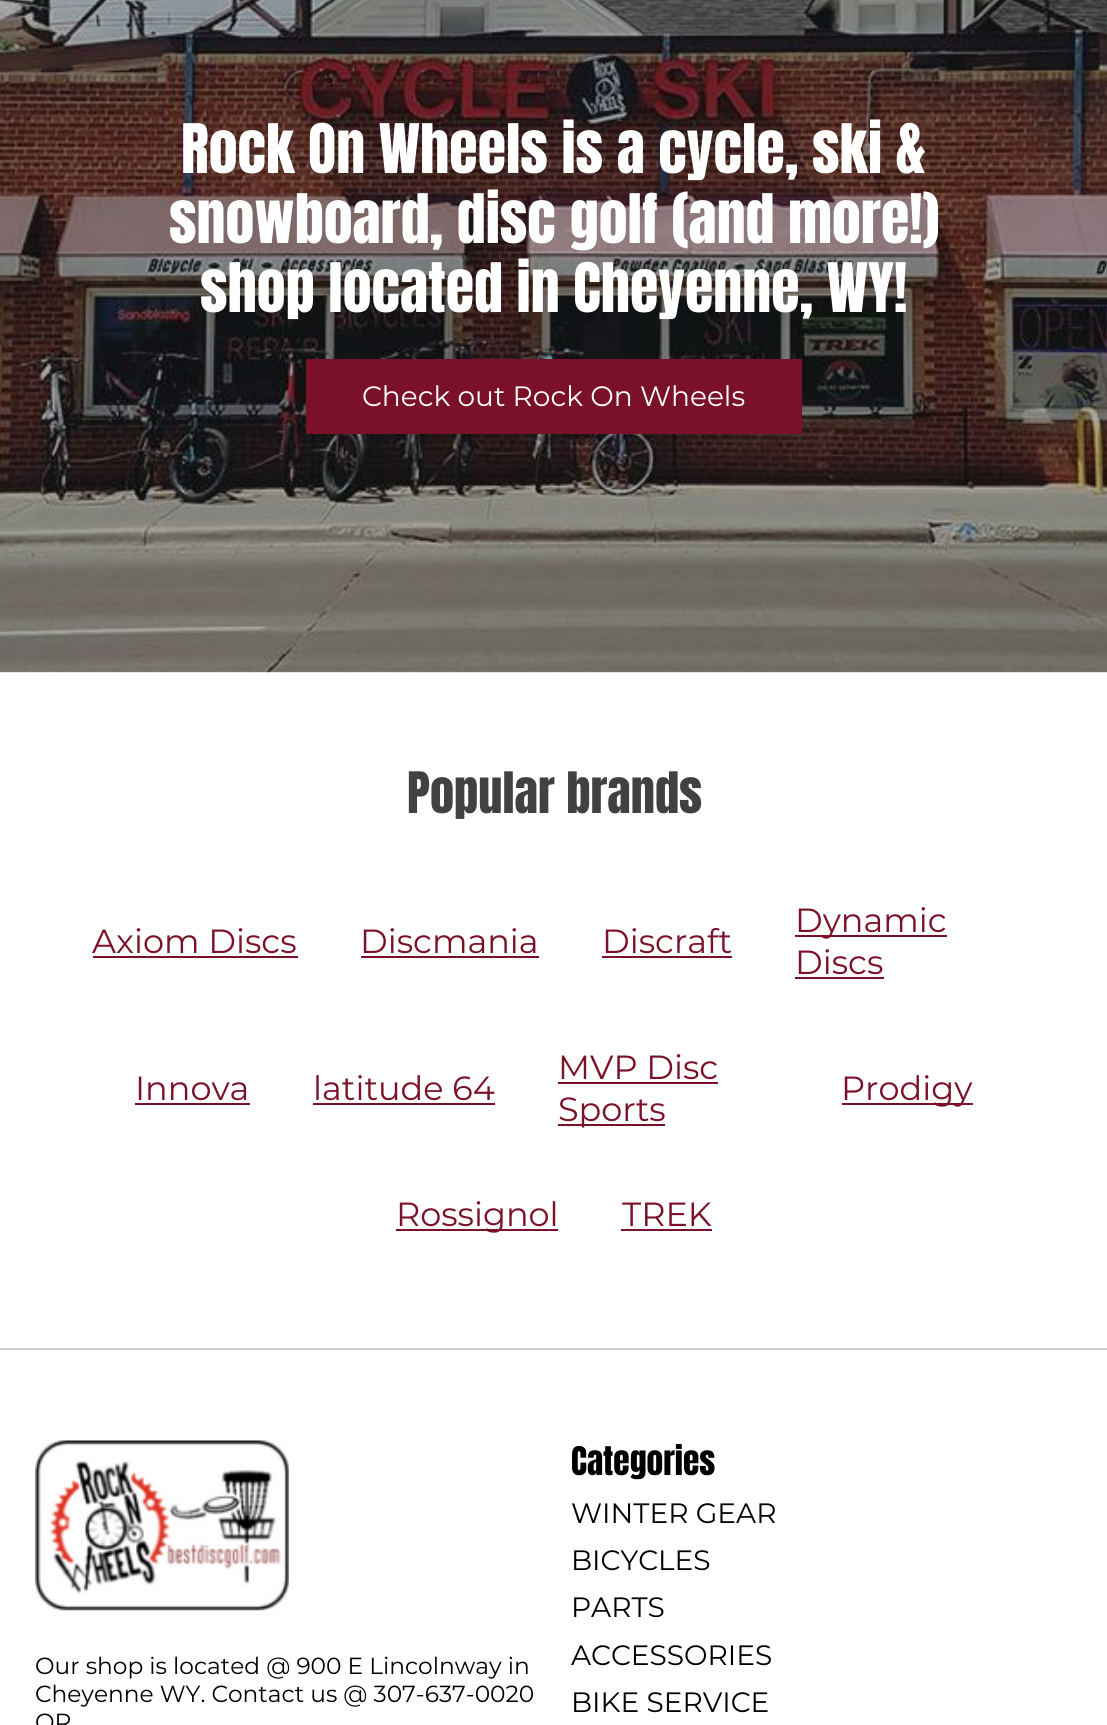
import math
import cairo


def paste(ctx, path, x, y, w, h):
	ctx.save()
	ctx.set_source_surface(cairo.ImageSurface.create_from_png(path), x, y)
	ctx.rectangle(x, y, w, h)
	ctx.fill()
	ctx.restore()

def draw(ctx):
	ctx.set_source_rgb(1, 1, 1)
	ctx.paint()
	paste(ctx, 'media/1.png', 0, 0, 1107, 673)
	ctx.select_font_face('Anton')
	ctx.set_font_size(58)
	ctx.set_source_rgb(1, 1, 1)
	for x, y, s in [
		(181, 173, 'Rock On Wheels is a cycle, ski &'),
		(169, 243, 'snowboard, disc golf (and more!)'),
		(200, 312, 'shop located in Cheyenne, WY!'),
	]:
		ctx.move_to(x, y)
		ctx.show_text(s)
	ctx.set_source_rgb(0.482, 0.067, 0.157)
	ctx.rectangle(306, 359, 496, 75)
	ctx.fill()
	ctx.select_font_face('Montserrat')
	ctx.set_font_size(28)
	ctx.set_source_rgb(1, 1, 1)
	ctx.move_to(362, 406)
	ctx.show_text('Check out Rock On Wheels')
	ctx.select_font_face('Anton')
	ctx.set_font_size(48.5)
	ctx.set_source_rgb(0.255, 0.255, 0.255)
	ctx.move_to(407, 813)
	ctx.show_text('Popular brands')
	ctx.select_font_face('Montserrat')
	ctx.set_font_size(33.5)
	ctx.set_source_rgb(0.482, 0.067, 0.157)
	ctx.move_to(92, 953)
	ctx.show_text('Axiom Discs')
	ctx.rectangle(93, 956, 205, 2)
	ctx.fill()
	ctx.move_to(360, 953)
	ctx.show_text('Discmania')
	ctx.rectangle(361, 956, 178, 2)
	ctx.fill()
	ctx.move_to(602, 953)
	ctx.show_text('Discraft')
	ctx.rectangle(602, 956, 130, 2)
	ctx.fill()
	ctx.rectangle(795, 935, 152, 2)
	ctx.fill()
	ctx.move_to(795, 932)
	ctx.show_text('Dynamic')
	ctx.move_to(795, 974)
	ctx.show_text('Discs')
	ctx.rectangle(795, 977, 89, 2)
	ctx.fill()
	ctx.move_to(135, 1100)
	ctx.show_text('Innova')
	ctx.rectangle(135, 1103, 115, 2)
	ctx.fill()
	ctx.move_to(313, 1100)
	ctx.show_text('latitude 64')
	ctx.rectangle(313, 1103, 182, 2)
	ctx.fill()
	ctx.move_to(558, 1079)
	ctx.show_text('MVP Disc')
	ctx.rectangle(558, 1082, 160, 2)
	ctx.fill()
	ctx.rectangle(558, 1124, 107, 2)
	ctx.fill()
	ctx.move_to(558, 1121)
	ctx.show_text('Sports')
	ctx.rectangle(842, 1103, 131, 2)
	ctx.fill()
	ctx.move_to(841, 1100)
	ctx.show_text('Prodigy')
	ctx.rectangle(396, 1229, 162, 2)
	ctx.fill()
	ctx.move_to(396, 1226)
	ctx.show_text('Rossignol')
	ctx.move_to(622, 1226)
	ctx.show_text('TREK')
	ctx.rectangle(621, 1229, 91, 2)
	ctx.fill()
	ctx.set_source_rgb(0.8, 0.8, 0.8)
	ctx.rectangle(0, 1348, 1107, 2)
	ctx.fill()
	paste(ctx, 'media/2.png', 35, 1440, 254, 171)
	ctx.set_font_size(23.3)
	ctx.set_source_rgb(0, 0, 0)
	for x, y, s in [
		(35, 1674, 'Our shop is located @ 900 E Lincolnway in'),
		(35, 1702, 'Cheyenne WY. Contact us @ 307-637-0020'),
		(35, 1730, 'OR'),
	]:
		ctx.move_to(x, y)
		ctx.show_text(s)
	ctx.select_font_face('Anton')
	ctx.set_font_size(33.5)
	ctx.move_to(571, 1475)
	ctx.show_text('Categories')
	ctx.select_font_face('Montserrat')
	ctx.set_font_size(28)
	for x, y, s in [
		(571, 1523, 'WINTER GEAR'),
		(571, 1570, 'BICYCLES'),
		(571, 1617, 'PARTS'),
		(571, 1665, 'ACCESSORIES'),
		(571, 1712, 'BIKE SERVICE'),
	]:
		ctx.move_to(x, y)
		ctx.show_text(s)


surface = cairo.ImageSurface(cairo.FORMAT_RGB24, 1107, 1725)
ctx = cairo.Context(surface)
options = cairo.FontOptions()
options.set_hint_metrics(cairo.HINT_METRICS_OFF)
options.set_hint_style(cairo.HINT_STYLE_NONE)
ctx.set_font_options(options)
ctx.set_miter_limit(4)
draw(ctx)
surface.write_to_png('image.png')
